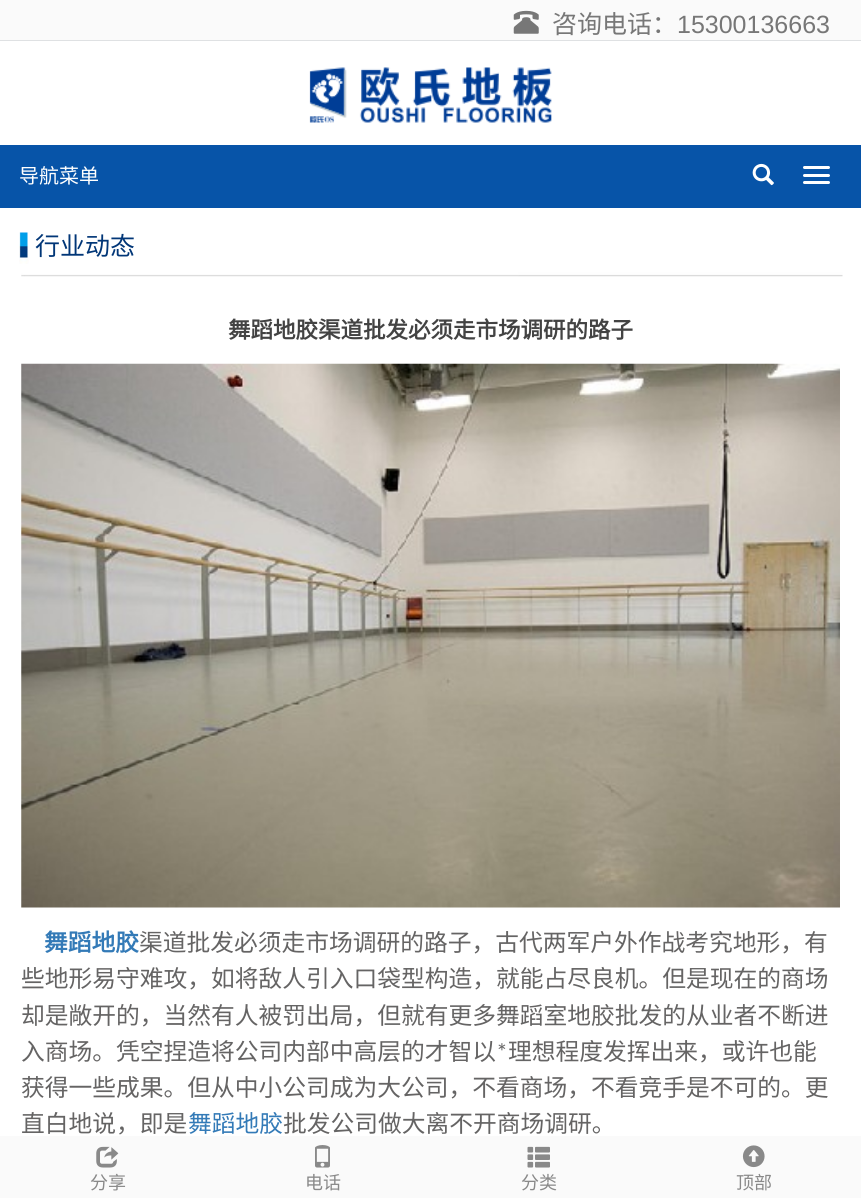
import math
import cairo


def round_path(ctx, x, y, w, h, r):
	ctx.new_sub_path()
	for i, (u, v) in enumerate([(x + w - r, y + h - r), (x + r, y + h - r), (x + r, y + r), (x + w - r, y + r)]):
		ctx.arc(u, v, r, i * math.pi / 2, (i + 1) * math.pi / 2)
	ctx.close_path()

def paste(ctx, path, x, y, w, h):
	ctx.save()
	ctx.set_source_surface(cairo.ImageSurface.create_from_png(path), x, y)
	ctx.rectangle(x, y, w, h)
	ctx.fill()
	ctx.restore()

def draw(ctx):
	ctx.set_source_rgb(1, 1, 1)
	ctx.paint()
	ctx.set_source_rgb(0.98, 0.98, 0.98)
	ctx.rectangle(0, 0, 861, 40)
	ctx.fill()
	ctx.set_source_rgb(0.875, 0.882, 0.89)
	ctx.rectangle(0, 40, 861, 1)
	ctx.fill()
	paste(ctx, 'media/1.png', 513, 10, 26, 24)
	ctx.select_font_face('Noto Sans CJK SC')
	ctx.set_font_size(25)
	ctx.set_source_rgb(0.467, 0.467, 0.467)
	ctx.move_to(552, 33)
	ctx.show_text('咨询电话：')
	ctx.select_font_face('Liberation Sans')
	ctx.move_to(677, 33)
	ctx.show_text('15300136663')
	paste(ctx, 'media/2.png', 309, 67, 243, 56)
	ctx.set_source_rgb(0.031, 0.329, 0.659)
	ctx.rectangle(0, 145, 861, 63)
	ctx.fill()
	ctx.select_font_face('Noto Sans CJK SC')
	ctx.set_font_size(20)
	ctx.set_source_rgb(1, 1, 1)
	ctx.move_to(19, 183)
	ctx.show_text('导航菜单')
	paste(ctx, 'media/3.png', 752, 163, 22, 23)
	round_path(ctx, 803, 166, 27, 3, 1.5)
	ctx.fill()
	round_path(ctx, 803, 174, 27, 3, 1.5)
	ctx.fill()
	round_path(ctx, 803, 181, 27, 3, 1.5)
	ctx.fill()
	paste(ctx, 'media/4.png', 19, 232, 824, 45)
	ctx.set_font_size(25)
	ctx.set_source_rgb(0.004, 0.212, 0.467)
	ctx.move_to(35, 255)
	ctx.show_text('行业动态')
	ctx.select_font_face('Noto Sans CJK SC', cairo.FONT_SLANT_NORMAL, cairo.FONT_WEIGHT_BOLD)
	ctx.set_font_size(22.5)
	ctx.set_source_rgb(0.263, 0.263, 0.263)
	ctx.move_to(228, 338)
	ctx.show_text('舞蹈地胶渠道批发必须走市场调研的路子')
	paste(ctx, 'media/5.png', 21, 363, 819, 545)
	ctx.set_font_size(23.75)
	ctx.set_source_rgb(0.2, 0.478, 0.718)
	ctx.move_to(44, 951)
	ctx.show_text('舞蹈地胶')
	ctx.select_font_face('Noto Sans CJK SC')
	ctx.set_source_rgb(0.396, 0.392, 0.392)
	for x, y, s in [
		(139, 951, '渠道批发必须走市场调研的路子，古代两军户外作战考究地形，有'),
		(21, 987, '些地形易守难攻，如将敌人引入口袋型构造，就能占尽良机。但是现在的商场'),
		(21, 1024, '却是敞开的，当然有人被罚出局，但就有更多舞蹈室地胶批发的从业者不断进'),
		(21, 1060, '入商场。凭空捏造将公司内部中高层的才智以'),
	]:
		ctx.move_to(x, y)
		ctx.show_text(s)
	ctx.select_font_face('Carlito')
	ctx.move_to(496, 1060)
	ctx.show_text('*')
	ctx.select_font_face('Noto Sans CJK SC')
	for x, y, s in [
		(508, 1060, '理想程度发挥出来，或许也能'),
		(21, 1096, '获得一些成果。但从中小公司成为大公司，不看商场，不看竞手是不可的。更'),
		(21, 1132, '直白地说，即是'),
	]:
		ctx.move_to(x, y)
		ctx.show_text(s)
	ctx.set_source_rgb(0.2, 0.478, 0.718)
	ctx.move_to(188, 1132)
	ctx.show_text('舞蹈地胶')
	ctx.set_source_rgb(0.396, 0.392, 0.392)
	ctx.move_to(283, 1132)
	ctx.show_text('批发公司做大离不开商场调研。')
	ctx.set_source_rgb(0.98, 0.98, 0.98)
	ctx.rectangle(0, 1136, 861, 62)
	ctx.fill()
	paste(ctx, 'media/6.png', 96, 1146, 23, 22)
	ctx.set_font_size(18)
	ctx.set_source_rgb(0.537, 0.537, 0.537)
	ctx.move_to(90, 1189)
	ctx.show_text('分享')
	paste(ctx, 'media/7.png', 315, 1145, 15, 23)
	ctx.move_to(305, 1189)
	ctx.show_text('电话')
	paste(ctx, 'media/8.png', 527, 1146, 23, 22)
	ctx.move_to(521, 1189)
	ctx.show_text('分类')
	paste(ctx, 'media/9.png', 742, 1145, 23, 23)
	ctx.move_to(736, 1189)
	ctx.show_text('顶部')


surface = cairo.ImageSurface(cairo.FORMAT_RGB24, 861, 1198)
ctx = cairo.Context(surface)
options = cairo.FontOptions()
options.set_hint_metrics(cairo.HINT_METRICS_OFF)
options.set_hint_style(cairo.HINT_STYLE_NONE)
ctx.set_font_options(options)
ctx.set_miter_limit(4)
draw(ctx)
surface.write_to_png('image.png')
